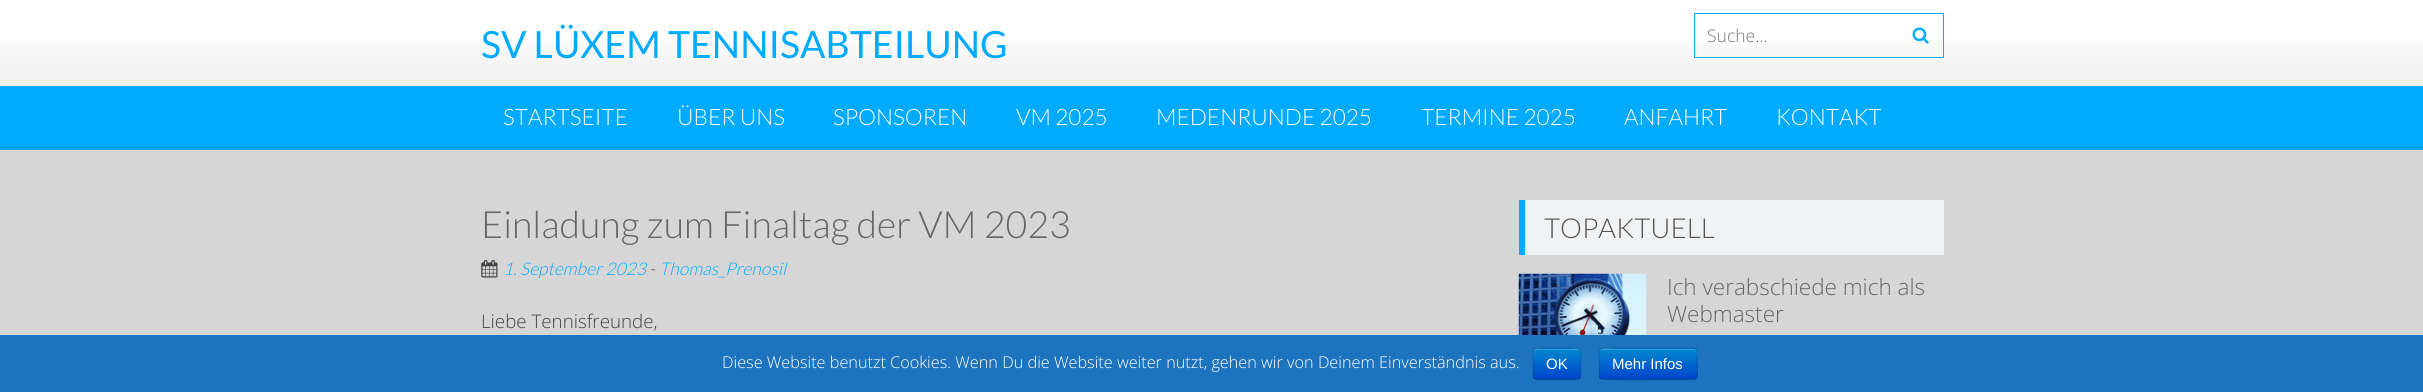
import math
import cairo


def round_path(ctx, x, y, w, h, r):
	ctx.new_sub_path()
	for i, (u, v) in enumerate([(x + w - r, y + h - r), (x + r, y + h - r), (x + r, y + r), (x + w - r, y + r)]):
		ctx.arc(u, v, r, i * math.pi / 2, (i + 1) * math.pi / 2)
	ctx.close_path()

def paste(ctx, path, x, y, w, h):
	ctx.save()
	ctx.set_source_surface(cairo.ImageSurface.create_from_png(path), x, y)
	ctx.rectangle(x, y, w, h)
	ctx.fill()
	ctx.restore()

def draw(ctx):
	ctx.set_source_rgb(0.839, 0.839, 0.839)
	ctx.paint()
	ctx.set_source_rgb(1, 1, 1)
	ctx.rectangle(0, 0, 2423, 41)
	ctx.fill()
	paste(ctx, 'media/1.png', 0, 41, 2423, 45)
	ctx.select_font_face('Lato')
	ctx.set_font_size(37.5)
	ctx.set_source_rgb(0, 0.671, 1)
	ctx.move_to(481, 58)
	ctx.show_text('SV LÜXEM TENNISABTEILUNG')
	ctx.rectangle(1694.5, 13.5, 249, 44)
	ctx.set_source_rgb(0.004, 0.682, 0.992)
	ctx.set_line_width(1)
	ctx.stroke()
	ctx.select_font_face('Open Sans Light')
	ctx.set_font_size(17.5)
	ctx.set_source_rgb(0.459, 0.459, 0.459)
	ctx.move_to(1707, 42)
	ctx.show_text('Suche...')
	paste(ctx, 'media/2.png', 1912, 27, 17, 17)
	ctx.set_source_rgb(0, 0.671, 1)
	ctx.rectangle(0, 86, 2423, 60)
	ctx.fill()
	ctx.set_source_rgb(0.016, 0.639, 0.929)
	ctx.rectangle(0, 146, 2423, 4)
	ctx.fill()
	ctx.select_font_face('Lato Light')
	ctx.set_font_size(22.5)
	ctx.set_source_rgb(1, 1, 1)
	for x, y, s in [
		(503, 125, 'STARTSEITE'),
		(677, 125, 'ÜBER UNS'),
		(833, 125, 'SPONSOREN'),
		(1016, 125, 'VM 2025'),
		(1156, 125, 'MEDENRUNDE 2025'),
		(1421, 125, 'TERMINE 2025'),
		(1624, 125, 'ANFAHRT'),
		(1776, 125, 'KONTAKT'),
	]:
		ctx.move_to(x, y)
		ctx.show_text(s)
	ctx.set_font_size(37.5)
	ctx.set_source_rgb(0.4, 0.4, 0.4)
	ctx.move_to(481, 238)
	ctx.show_text('Einladung zum Finaltag der VM 2023')
	paste(ctx, 'media/3.png', 481, 260, 17, 18)
	ctx.select_font_face('Lato Light', cairo.FONT_SLANT_ITALIC)
	ctx.set_font_size(17.5)
	ctx.set_source_rgb(0, 0.671, 1)
	ctx.move_to(503, 275)
	ctx.show_text('1. September 2023')
	ctx.set_source_rgb(0.267, 0.267, 0.267)
	ctx.move_to(649, 275)
	ctx.show_text('-')
	ctx.set_source_rgb(0, 0.671, 1)
	ctx.move_to(659, 275)
	ctx.show_text('Thomas_Prenosil')
	ctx.select_font_face('Open Sans Light')
	ctx.set_font_size(18.75)
	ctx.set_source_rgb(0.267, 0.267, 0.267)
	ctx.move_to(481, 328)
	ctx.show_text('Liebe Tennisfreunde,')
	ctx.set_source_rgb(0.945, 0.949, 0.953)
	ctx.rectangle(1525, 200, 419, 55)
	ctx.fill()
	ctx.set_source_rgb(0.004, 0.682, 0.992)
	ctx.rectangle(1519, 200, 6, 55)
	ctx.fill()
	ctx.select_font_face('Lato Light')
	ctx.set_font_size(27.5)
	ctx.set_source_rgb(0.333, 0.333, 0.333)
	ctx.move_to(1544, 238)
	ctx.show_text('TOPAKTUELL')
	paste(ctx, 'media/4.png', 1518, 273, 129, 62)
	ctx.select_font_face('Open Sans Light')
	ctx.set_font_size(22.5)
	ctx.set_source_rgb(0.4, 0.4, 0.4)
	ctx.move_to(1667, 295)
	ctx.show_text('Ich verabschiede mich als')
	ctx.move_to(1667, 322)
	ctx.show_text('Webmaster')
	ctx.set_source_rgb(0.118, 0.451, 0.745)
	ctx.rectangle(0, 335, 2423, 57)
	ctx.fill()
	ctx.set_font_size(16.25)
	ctx.set_source_rgb(1, 1, 1)
	ctx.move_to(722, 368)
	ctx.show_text('Diese Website benutzt Cookies. Wenn Du die Website weiter nutzt, gehen wir von Deinem Einverständnis aus.')
	ctx.set_source_rgb(0, 0.427, 0.8)
	round_path(ctx, 1533, 348, 48, 32, 4)
	ctx.fill()
	ctx.save()
	round_path(ctx, 1533, 348, 48, 32, 4)
	ctx.clip()
	gradient = cairo.LinearGradient(1557, 349, 1557, 379)
	gradient.add_color_stop_rgba(0, 0, 0.533, 0.8, 1)
	gradient.add_color_stop_rgba(1, 0, 0.267, 0.8, 1)
	ctx.set_source(gradient)
	ctx.rectangle(1533, 349, 48, 30)
	ctx.fill()
	ctx.restore()
	ctx.set_source_rgb(0.2, 0.624, 0.839)
	ctx.new_path()
	ctx.move_to(1536, 350)
	ctx.line_to(1578, 350)
	ctx.curve_to(1579, 350, 1580, 351, 1580, 352)
	ctx.curve_to(1580, 347, 1573, 349, 1571, 349)
	ctx.line_to(1543, 349)
	ctx.curve_to(1541, 349, 1534, 347, 1534, 352)
	ctx.curve_to(1534, 351, 1535, 350, 1536, 350)
	ctx.close_path()
	ctx.fill()
	ctx.new_path()
	ctx.move_to(1579.5, 378.5)
	ctx.line_to(1577.5, 379.5)
	ctx.line_to(1536, 379.5)
	ctx.line_to(1534, 378.5)
	ctx.set_source_rgba(0, 0, 0, 0.25)
	ctx.set_line_width(1.2)
	ctx.stroke()
	ctx.new_path()
	ctx.move_to(1534, 378.5)
	ctx.curve_to(1532, 376.5, 1533, 366.5, 1533, 364)
	ctx.curve_to(1533, 349, 1529.5, 348, 1543, 348)
	ctx.line_to(1570.5, 348)
	ctx.curve_to(1584, 348, 1580.5, 349, 1580.5, 364)
	ctx.curve_to(1580.5, 366.5, 1582, 376.5, 1579.5, 378.5)
	ctx.set_source_rgba(0, 0, 0, 0.1)
	ctx.stroke()
	ctx.select_font_face('Liberation Sans')
	ctx.set_font_size(15)
	ctx.set_source_rgb(1, 1, 1)
	ctx.move_to(1546, 369)
	ctx.show_text('OK')
	ctx.set_source_rgb(0, 0.427, 0.8)
	round_path(ctx, 1599, 348, 99, 32, 4)
	ctx.fill()
	ctx.save()
	round_path(ctx, 1599, 348, 99, 32, 4)
	ctx.clip()
	gradient = cairo.LinearGradient(1648, 349, 1648, 379)
	gradient.add_color_stop_rgba(0, 0, 0.533, 0.8, 1)
	gradient.add_color_stop_rgba(1, 0, 0.267, 0.8, 1)
	ctx.set_source(gradient)
	ctx.rectangle(1599, 349, 99, 30)
	ctx.fill()
	ctx.restore()
	ctx.set_source_rgba(1, 1, 1, 0.2)
	ctx.new_path()
	ctx.move_to(1602, 350)
	ctx.line_to(1694, 350)
	ctx.curve_to(1695, 350, 1696, 351, 1696, 352)
	ctx.curve_to(1696, 351, 1696, 350, 1694, 349)
	ctx.line_to(1618, 349)
	ctx.curve_to(1612, 349, 1600, 346, 1600, 352)
	ctx.curve_to(1600, 351, 1601, 350, 1602, 350)
	ctx.close_path()
	ctx.fill()
	ctx.new_path()
	ctx.move_to(1696, 378.5)
	ctx.line_to(1694, 379.5)
	ctx.line_to(1678.5, 379.5)
	ctx.curve_to(1670, 379.5, 1602.5, 380.5, 1600.5, 378.5)
	ctx.set_source_rgba(0, 0, 0, 0.25)
	ctx.stroke()
	ctx.new_path()
	ctx.move_to(1600.5, 378.5)
	ctx.curve_to(1598, 376.5, 1599.5, 370.5, 1599.5, 368)
	ctx.curve_to(1599.5, 345, 1595, 348, 1617.5, 348)
	ctx.line_to(1678.5, 348)
	ctx.curve_to(1699.5, 348, 1697, 344.5, 1697, 364)
	ctx.curve_to(1697, 366.5, 1698, 376.5, 1696, 378.5)
	ctx.set_source_rgba(0, 0, 0, 0.1)
	ctx.stroke()
	ctx.set_source_rgb(1, 1, 1)
	ctx.move_to(1612, 369)
	ctx.show_text('Mehr Infos')


surface = cairo.ImageSurface(cairo.FORMAT_RGB24, 2423, 392)
ctx = cairo.Context(surface)
options = cairo.FontOptions()
options.set_hint_metrics(cairo.HINT_METRICS_OFF)
options.set_hint_style(cairo.HINT_STYLE_NONE)
ctx.set_font_options(options)
ctx.set_miter_limit(4)
draw(ctx)
surface.write_to_png('image.png')
